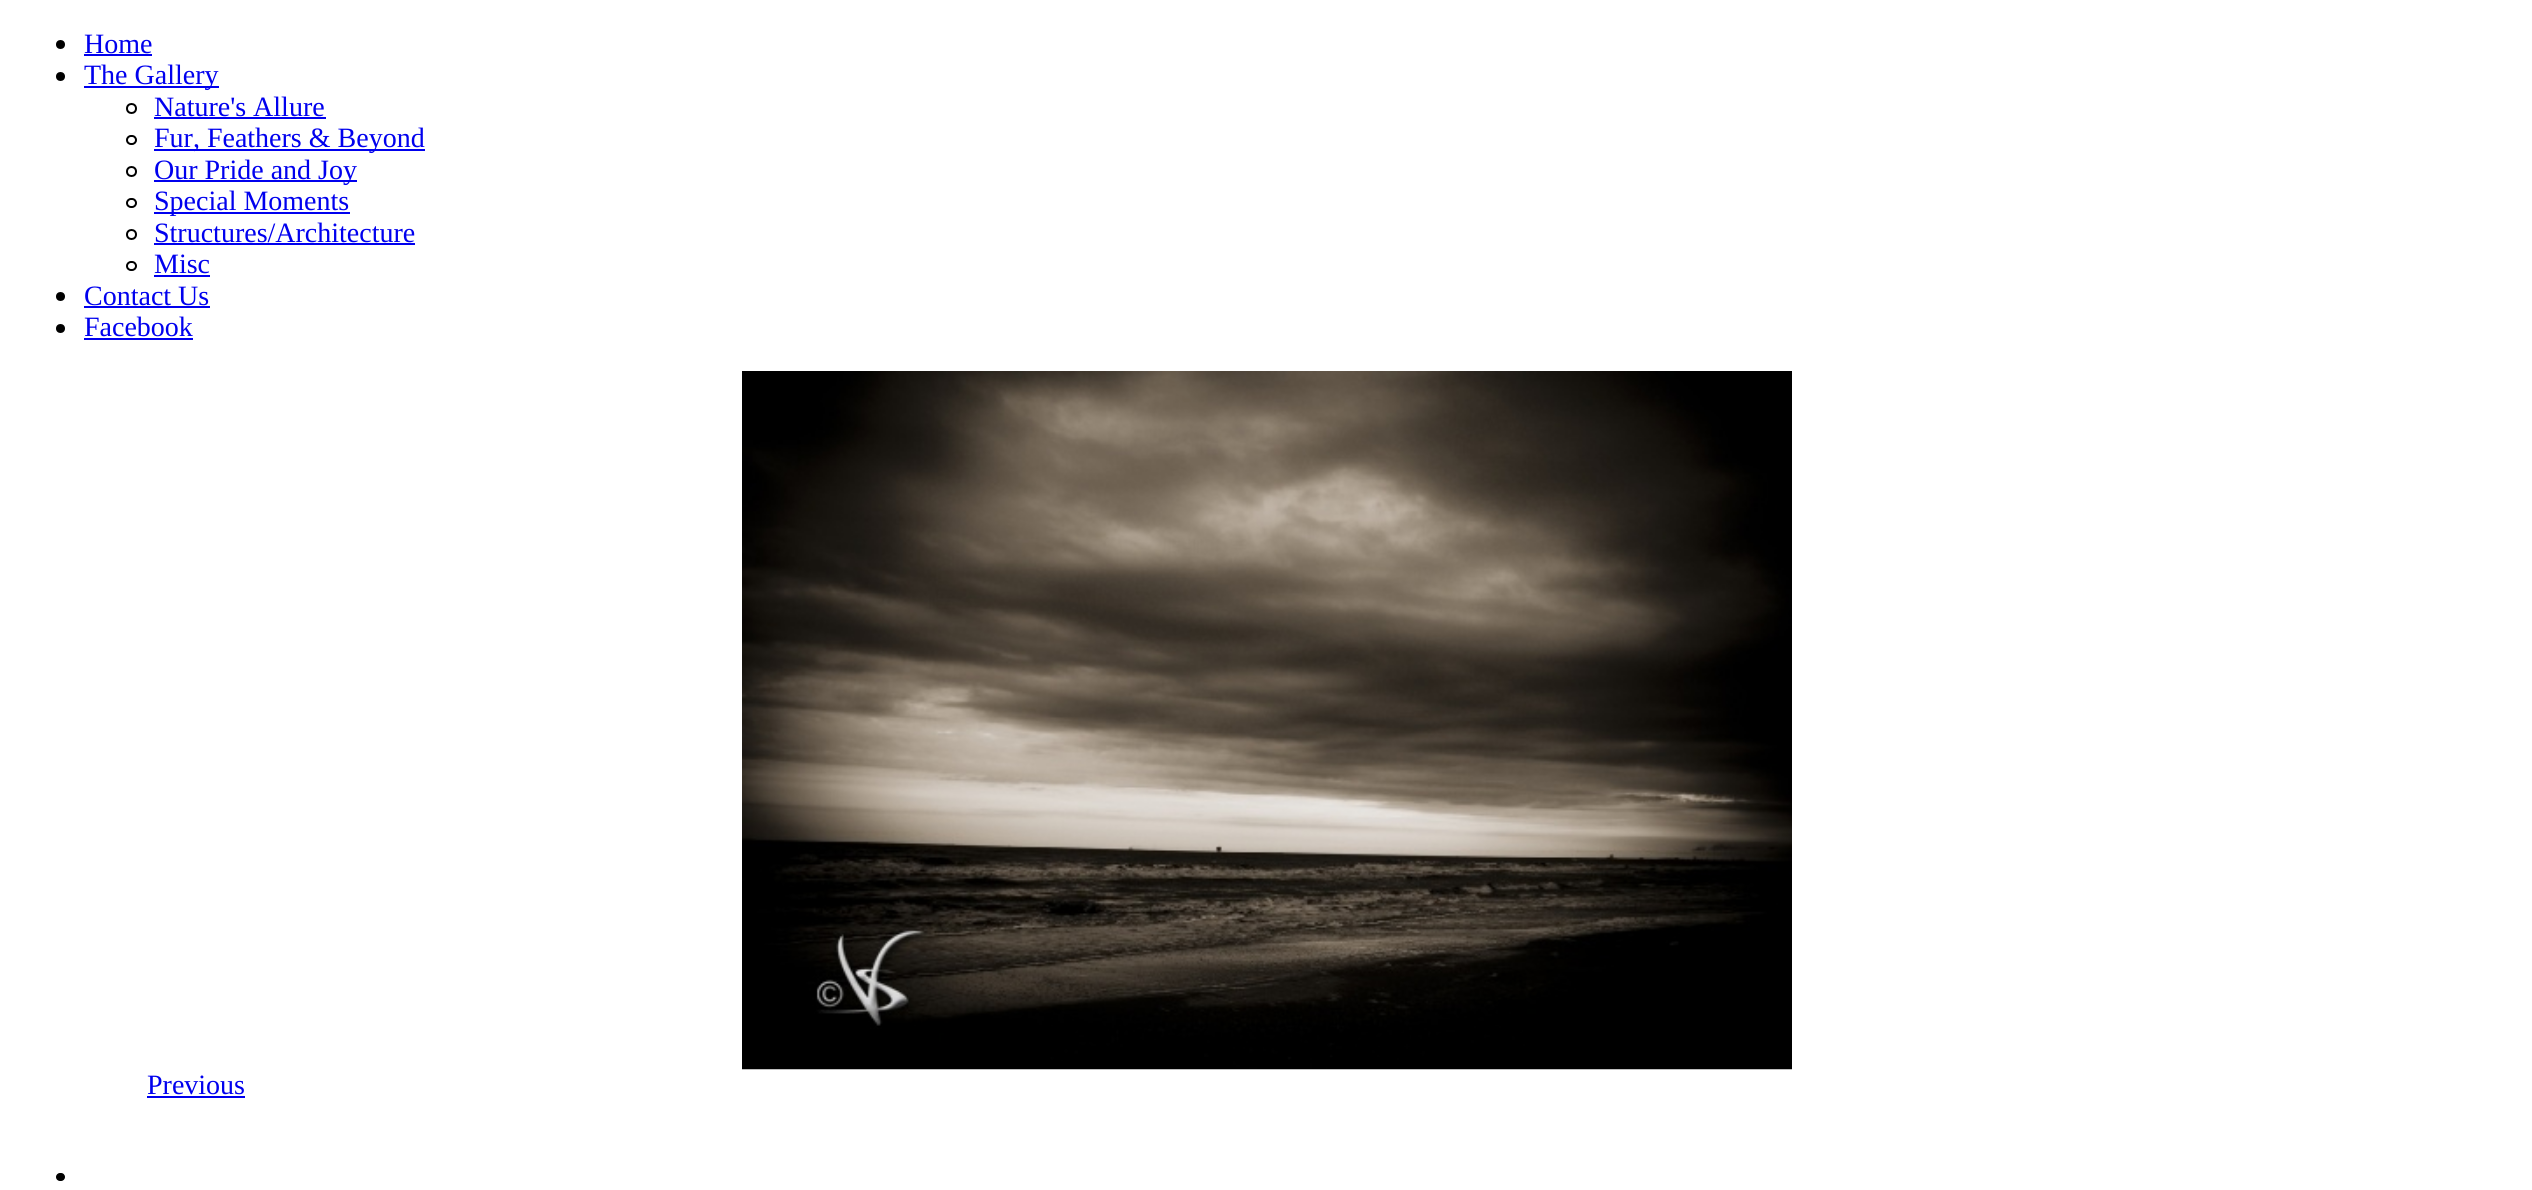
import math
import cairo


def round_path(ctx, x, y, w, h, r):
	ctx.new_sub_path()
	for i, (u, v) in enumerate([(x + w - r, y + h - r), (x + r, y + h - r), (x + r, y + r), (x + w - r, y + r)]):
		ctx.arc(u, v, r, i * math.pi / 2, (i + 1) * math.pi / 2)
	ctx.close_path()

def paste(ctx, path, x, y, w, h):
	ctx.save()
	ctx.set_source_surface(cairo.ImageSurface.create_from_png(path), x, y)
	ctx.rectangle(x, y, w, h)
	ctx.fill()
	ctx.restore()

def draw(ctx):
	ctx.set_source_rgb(1, 1, 1)
	ctx.paint()
	ctx.set_source_rgb(0, 0, 0)
	ctx.arc(60.5, 44.5, 4.5, 0, 2 * math.pi)
	ctx.fill()
	ctx.select_font_face('Liberation Serif')
	ctx.set_font_size(28)
	ctx.set_source_rgb(0, 0, 0.933)
	ctx.move_to(84, 53)
	ctx.show_text('Home')
	ctx.rectangle(84, 54, 68, 2)
	ctx.fill()
	ctx.set_source_rgb(0, 0, 0)
	ctx.arc(60.5, 76.5, 4.5, 0, 2 * math.pi)
	ctx.fill()
	ctx.set_source_rgb(0, 0, 0.933)
	ctx.rectangle(84, 86, 135, 2)
	ctx.fill()
	ctx.move_to(84, 84)
	ctx.show_text('The Gallery')
	ctx.new_path()
	ctx.arc(131.5, 108.5, 4.5, 0, 2 * math.pi)
	ctx.set_source_rgb(0, 0, 0)
	ctx.stroke()
	ctx.set_source_rgb(0, 0, 0.933)
	ctx.move_to(154, 116)
	ctx.show_text('Nature\'s Allure')
	ctx.rectangle(154, 117, 172, 2)
	ctx.fill()
	round_path(ctx, 127, 136, 9, 8, 4)
	ctx.set_source_rgb(0, 0, 0)
	ctx.stroke()
	ctx.set_source_rgb(0, 0, 0.933)
	ctx.rectangle(154, 149, 271, 2)
	ctx.fill()
	ctx.move_to(154, 147)
	ctx.show_text('Fur, Feathers & Beyond')
	ctx.new_path()
	ctx.arc(131.5, 171.5, 4.5, 0, 2 * math.pi)
	ctx.set_source_rgb(0, 0, 0)
	ctx.stroke()
	ctx.set_source_rgb(0, 0, 0.933)
	ctx.rectangle(154, 180, 203, 2)
	ctx.fill()
	ctx.move_to(154, 179)
	ctx.show_text('Our Pride and Joy')
	round_path(ctx, 127, 199, 9, 8, 4)
	ctx.set_source_rgb(0, 0, 0)
	ctx.stroke()
	ctx.set_source_rgb(0, 0, 0.933)
	ctx.rectangle(154, 212, 196, 2)
	ctx.fill()
	ctx.move_to(154, 210)
	ctx.show_text('Special Moments')
	ctx.new_path()
	ctx.arc(131.5, 234.5, 4.5, 0, 2 * math.pi)
	ctx.set_source_rgb(0, 0, 0)
	ctx.stroke()
	ctx.set_source_rgb(0, 0, 0.933)
	ctx.move_to(154, 242)
	ctx.show_text('Structures/Architecture')
	ctx.rectangle(154, 243, 261, 2)
	ctx.fill()
	round_path(ctx, 127, 262, 9, 8, 4)
	ctx.set_source_rgb(0, 0, 0)
	ctx.stroke()
	ctx.set_source_rgb(0, 0, 0.933)
	ctx.move_to(154, 273)
	ctx.show_text('Misc')
	ctx.rectangle(154, 275, 56, 2)
	ctx.fill()
	ctx.set_source_rgb(0, 0, 0)
	ctx.arc(60.5, 296.5, 4.5, 0, 2 * math.pi)
	ctx.fill()
	ctx.set_source_rgb(0, 0, 0.933)
	ctx.move_to(84, 305)
	ctx.show_text('Contact Us')
	ctx.rectangle(84, 306, 126, 2)
	ctx.fill()
	ctx.set_source_rgb(0, 0, 0)
	ctx.arc(60.5, 328.5, 4.5, 0, 2 * math.pi)
	ctx.fill()
	ctx.set_source_rgb(0, 0, 0.933)
	ctx.move_to(84, 336)
	ctx.show_text('Facebook')
	ctx.rectangle(84, 338, 109, 2)
	ctx.fill()
	paste(ctx, 'media/1.png', 742, 371, 1050, 699)
	ctx.move_to(147, 1094)
	ctx.show_text('Previous')
	ctx.rectangle(147, 1096, 98, 2)
	ctx.fill()
	ctx.set_source_rgb(0, 0, 0)
	round_path(ctx, 56, 1173, 9, 8, 4)
	ctx.fill()


surface = cairo.ImageSurface(cairo.FORMAT_RGB24, 2532, 1190)
ctx = cairo.Context(surface)
options = cairo.FontOptions()
options.set_hint_metrics(cairo.HINT_METRICS_OFF)
options.set_hint_style(cairo.HINT_STYLE_NONE)
ctx.set_font_options(options)
ctx.set_miter_limit(4)
draw(ctx)
surface.write_to_png('image.png')
